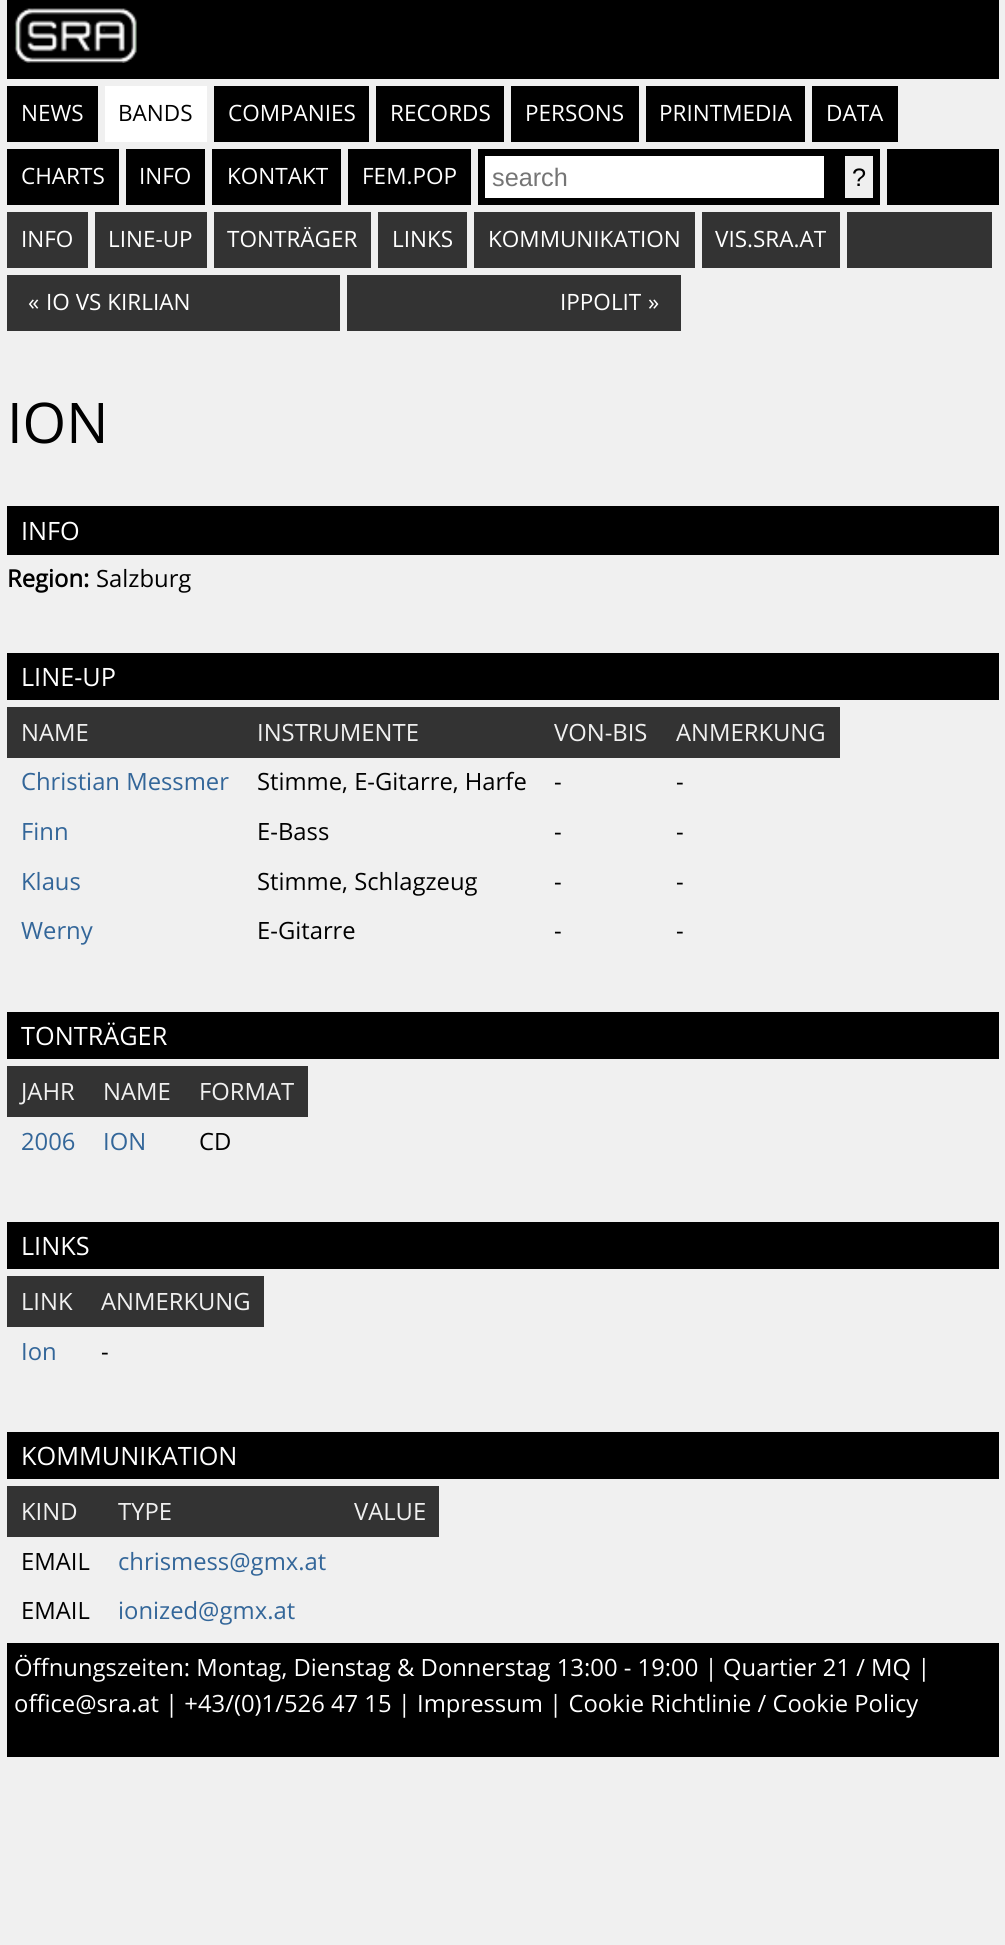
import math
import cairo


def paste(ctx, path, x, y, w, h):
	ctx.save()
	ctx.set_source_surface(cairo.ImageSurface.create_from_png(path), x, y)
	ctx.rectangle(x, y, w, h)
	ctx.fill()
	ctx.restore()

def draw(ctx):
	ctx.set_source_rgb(0.941, 0.941, 0.941)
	ctx.paint()
	ctx.set_source_rgb(0, 0, 0)
	ctx.rectangle(7, 0, 992, 79)
	ctx.fill()
	paste(ctx, 'media/1.png', 14, 8, 123, 55)
	ctx.rectangle(7, 86, 91, 56)
	ctx.fill()
	ctx.select_font_face('Open Sans')
	ctx.set_font_size(22.5)
	ctx.set_source_rgb(1, 1, 1)
	ctx.move_to(21, 121)
	ctx.show_text('NEWS')
	ctx.rectangle(105, 86, 102, 56)
	ctx.fill()
	ctx.set_source_rgb(0, 0, 0)
	ctx.move_to(118, 121)
	ctx.show_text('BANDS')
	ctx.rectangle(214, 86, 155, 56)
	ctx.fill()
	ctx.set_source_rgb(1, 1, 1)
	ctx.move_to(228, 121)
	ctx.show_text('COMPANIES')
	ctx.set_source_rgb(0, 0, 0)
	ctx.rectangle(376, 86, 128, 56)
	ctx.fill()
	ctx.set_source_rgb(1, 1, 1)
	ctx.move_to(390, 121)
	ctx.show_text('RECORDS')
	ctx.set_source_rgb(0, 0, 0)
	ctx.rectangle(511, 86, 128, 56)
	ctx.fill()
	ctx.set_source_rgb(1, 1, 1)
	ctx.move_to(525, 121)
	ctx.show_text('PERSONS')
	ctx.set_source_rgb(0, 0, 0)
	ctx.rectangle(646, 86, 159, 56)
	ctx.fill()
	ctx.set_source_rgb(1, 1, 1)
	ctx.move_to(659, 121)
	ctx.show_text('PRINTMEDIA')
	ctx.set_source_rgb(0, 0, 0)
	ctx.rectangle(812, 86, 86, 56)
	ctx.fill()
	ctx.set_source_rgb(1, 1, 1)
	ctx.move_to(826, 121)
	ctx.show_text('DATA')
	ctx.set_source_rgb(0, 0, 0)
	ctx.rectangle(7, 149, 112, 56)
	ctx.fill()
	ctx.set_source_rgb(1, 1, 1)
	ctx.move_to(21, 184)
	ctx.show_text('CHARTS')
	ctx.set_source_rgb(0, 0, 0)
	ctx.rectangle(126, 149, 79, 56)
	ctx.fill()
	ctx.set_source_rgb(1, 1, 1)
	ctx.move_to(139, 184)
	ctx.show_text('INFO')
	ctx.set_source_rgb(0, 0, 0)
	ctx.rectangle(212, 149, 129, 56)
	ctx.fill()
	ctx.set_source_rgb(1, 1, 1)
	ctx.move_to(227, 184)
	ctx.show_text('KONTAKT')
	ctx.set_source_rgb(0, 0, 0)
	ctx.rectangle(348, 149, 123, 56)
	ctx.fill()
	ctx.set_source_rgb(1, 1, 1)
	ctx.move_to(362, 184)
	ctx.show_text('FEM.POP')
	ctx.set_source_rgb(0, 0, 0)
	ctx.rectangle(478, 149, 402, 56)
	ctx.fill()
	ctx.set_source_rgb(1, 1, 1)
	ctx.rectangle(485, 156, 339, 42)
	ctx.fill()
	ctx.select_font_face('Liberation Sans')
	ctx.set_font_size(25.25)
	ctx.set_source_rgb(0.459, 0.459, 0.459)
	ctx.move_to(492, 186)
	ctx.show_text('search')
	ctx.set_source_rgb(0.937, 0.937, 0.937)
	ctx.rectangle(845, 156, 28, 42)
	ctx.fill()
	ctx.set_source_rgb(0, 0, 0)
	ctx.move_to(852, 186)
	ctx.show_text('?')
	ctx.rectangle(887, 149, 112, 56)
	ctx.fill()
	ctx.set_source_rgb(0.2, 0.2, 0.2)
	ctx.rectangle(7, 212, 81, 56)
	ctx.fill()
	ctx.select_font_face('Open Sans')
	ctx.set_font_size(22.5)
	ctx.set_source_rgb(1, 1, 1)
	ctx.move_to(21, 247)
	ctx.show_text('INFO')
	ctx.set_source_rgb(0.2, 0.2, 0.2)
	ctx.rectangle(95, 212, 112, 56)
	ctx.fill()
	ctx.set_source_rgb(1, 1, 1)
	ctx.move_to(108, 247)
	ctx.show_text('LINE-UP')
	ctx.set_source_rgb(0.2, 0.2, 0.2)
	ctx.rectangle(214, 212, 157, 56)
	ctx.fill()
	ctx.set_source_rgb(1, 1, 1)
	ctx.move_to(227, 247)
	ctx.show_text('TONTRÄGER')
	ctx.set_source_rgb(0.2, 0.2, 0.2)
	ctx.rectangle(378, 212, 89, 56)
	ctx.fill()
	ctx.set_source_rgb(1, 1, 1)
	ctx.move_to(392, 247)
	ctx.show_text('LINKS')
	ctx.set_source_rgb(0.2, 0.2, 0.2)
	ctx.rectangle(474, 212, 221, 56)
	ctx.fill()
	ctx.set_source_rgb(1, 1, 1)
	ctx.move_to(488, 247)
	ctx.show_text('KOMMUNIKATION')
	ctx.set_source_rgb(0.2, 0.2, 0.2)
	ctx.rectangle(702, 212, 138, 56)
	ctx.fill()
	ctx.set_source_rgb(1, 1, 1)
	ctx.move_to(715, 247)
	ctx.show_text('VIS.SRA.AT')
	ctx.set_source_rgb(0.2, 0.2, 0.2)
	ctx.rectangle(847, 212, 145, 56)
	ctx.fill()
	ctx.rectangle(7, 275, 333, 56)
	ctx.fill()
	ctx.set_source_rgb(1, 1, 1)
	ctx.move_to(28, 310)
	ctx.show_text('«')
	ctx.move_to(46, 310)
	ctx.show_text('IO VS KIRLIAN')
	ctx.set_source_rgb(0.2, 0.2, 0.2)
	ctx.rectangle(347, 275, 334, 56)
	ctx.fill()
	ctx.set_source_rgb(1, 1, 1)
	ctx.move_to(560, 310)
	ctx.show_text('IPPOLIT')
	ctx.move_to(648, 310)
	ctx.show_text('»')
	ctx.set_font_size(56)
	ctx.set_source_rgb(0, 0, 0)
	ctx.move_to(7, 443)
	ctx.show_text('ION')
	ctx.rectangle(7, 506, 992, 49)
	ctx.fill()
	ctx.set_font_size(25.25)
	ctx.set_source_rgb(1, 1, 1)
	ctx.move_to(21, 540)
	ctx.show_text('INFO')
	ctx.select_font_face('Open Sans', cairo.FONT_SLANT_NORMAL, cairo.FONT_WEIGHT_BOLD)
	ctx.set_font_size(23.8)
	ctx.set_source_rgb(0, 0, 0)
	ctx.move_to(7, 587)
	ctx.show_text('Region:')
	ctx.select_font_face('Open Sans')
	ctx.move_to(96, 587)
	ctx.show_text('Salzburg')
	ctx.rectangle(7, 653, 992, 47)
	ctx.fill()
	ctx.set_font_size(25.25)
	ctx.set_source_rgb(1, 1, 1)
	ctx.move_to(21, 686)
	ctx.show_text('LINE-UP')
	ctx.set_source_rgb(0.2, 0.2, 0.2)
	ctx.rectangle(7, 707, 833, 51)
	ctx.fill()
	ctx.set_font_size(23.8)
	ctx.set_source_rgb(0.941, 0.941, 0.941)
	for x, y, s in [
		(21, 741, 'NAME'),
		(257, 741, 'INSTRUMENTE'),
		(554, 741, 'VON-BIS'),
		(676, 741, 'ANMERKUNG'),
	]:
		ctx.move_to(x, y)
		ctx.show_text(s)
	ctx.set_source_rgb(0.2, 0.4, 0.6)
	ctx.move_to(21, 790)
	ctx.show_text('Christian Messmer')
	ctx.set_source_rgb(0, 0, 0)
	for x, y, s in [
		(257, 790, 'Stimme, E-Gitarre, Harfe'),
		(554, 790, '-'),
		(676, 790, '-'),
	]:
		ctx.move_to(x, y)
		ctx.show_text(s)
	ctx.set_source_rgb(0.2, 0.4, 0.6)
	ctx.move_to(21, 840)
	ctx.show_text('Finn')
	ctx.set_source_rgb(0, 0, 0)
	for x, y, s in [
		(257, 840, 'E-Bass'),
		(554, 840, '-'),
		(676, 840, '-'),
	]:
		ctx.move_to(x, y)
		ctx.show_text(s)
	ctx.set_source_rgb(0.2, 0.4, 0.6)
	ctx.move_to(21, 890)
	ctx.show_text('Klaus')
	ctx.set_source_rgb(0, 0, 0)
	for x, y, s in [
		(257, 890, 'Stimme, Schlagzeug'),
		(554, 890, '-'),
		(676, 890, '-'),
	]:
		ctx.move_to(x, y)
		ctx.show_text(s)
	ctx.set_source_rgb(0.2, 0.4, 0.6)
	ctx.move_to(21, 939)
	ctx.show_text('Werny')
	ctx.set_source_rgb(0, 0, 0)
	for x, y, s in [
		(257, 939, 'E-Gitarre'),
		(554, 939, '-'),
		(676, 939, '-'),
	]:
		ctx.move_to(x, y)
		ctx.show_text(s)
	ctx.rectangle(7, 1012, 992, 47)
	ctx.fill()
	ctx.set_font_size(25.25)
	ctx.set_source_rgb(1, 1, 1)
	ctx.move_to(21, 1045)
	ctx.show_text('TONTRÄGER')
	ctx.set_source_rgb(0.2, 0.2, 0.2)
	ctx.rectangle(7, 1066, 301, 51)
	ctx.fill()
	ctx.set_font_size(23.8)
	ctx.set_source_rgb(0.941, 0.941, 0.941)
	for x, y, s in [
		(21, 1100, 'JAHR'),
		(103, 1100, 'NAME'),
		(199, 1100, 'FORMAT'),
	]:
		ctx.move_to(x, y)
		ctx.show_text(s)
	ctx.set_source_rgb(0.2, 0.4, 0.6)
	ctx.move_to(21, 1150)
	ctx.show_text('2006')
	ctx.move_to(103, 1150)
	ctx.show_text('ION')
	ctx.set_source_rgb(0, 0, 0)
	ctx.move_to(199, 1150)
	ctx.show_text('CD')
	ctx.rectangle(7, 1222, 992, 47)
	ctx.fill()
	ctx.set_font_size(25.25)
	ctx.set_source_rgb(1, 1, 1)
	ctx.move_to(21, 1255)
	ctx.show_text('LINKS')
	ctx.set_source_rgb(0.2, 0.2, 0.2)
	ctx.rectangle(7, 1276, 257, 51)
	ctx.fill()
	ctx.set_font_size(23.8)
	ctx.set_source_rgb(0.941, 0.941, 0.941)
	ctx.move_to(21, 1310)
	ctx.show_text('LINK')
	ctx.move_to(101, 1310)
	ctx.show_text('ANMERKUNG')
	ctx.set_source_rgb(0.2, 0.4, 0.6)
	ctx.move_to(21, 1360)
	ctx.show_text('Ion')
	ctx.set_source_rgb(0, 0, 0)
	ctx.move_to(101, 1360)
	ctx.show_text('-')
	ctx.rectangle(7, 1432, 992, 47)
	ctx.fill()
	ctx.set_font_size(25.25)
	ctx.set_source_rgb(1, 1, 1)
	ctx.move_to(21, 1465)
	ctx.show_text('KOMMUNIKATION')
	ctx.set_source_rgb(0.2, 0.2, 0.2)
	ctx.rectangle(7, 1486, 432, 51)
	ctx.fill()
	ctx.set_font_size(23.8)
	ctx.set_source_rgb(0.941, 0.941, 0.941)
	for x, y, s in [
		(21, 1520, 'KIND'),
		(118, 1520, 'TYPE'),
		(354, 1520, 'VALUE'),
	]:
		ctx.move_to(x, y)
		ctx.show_text(s)
	ctx.set_source_rgb(0, 0, 0)
	ctx.move_to(21, 1570)
	ctx.show_text('EMAIL')
	ctx.set_source_rgb(0.2, 0.4, 0.6)
	ctx.move_to(118, 1570)
	ctx.show_text('chrismess@gmx.at')
	ctx.set_source_rgb(0, 0, 0)
	ctx.move_to(21, 1619)
	ctx.show_text('EMAIL')
	ctx.set_source_rgb(0.2, 0.4, 0.6)
	ctx.move_to(118, 1619)
	ctx.show_text('ionized@gmx.at')
	ctx.set_source_rgb(0, 0, 0)
	ctx.rectangle(7, 1643, 992, 114)
	ctx.fill()
	ctx.set_source_rgb(1, 1, 1)
	for x, y, s in [
		(14, 1676, 'Öffnungszeiten: Montag, Dienstag & Donnerstag 13:00 - 19:00 |'),
		(723, 1676, 'Quartier 21 / MQ |'),
		(14, 1712, 'office@sra.at | +43/(0)1/526 47 15 | Impressum | Cookie Richtlinie / Cookie Policy'),
	]:
		ctx.move_to(x, y)
		ctx.show_text(s)


surface = cairo.ImageSurface(cairo.FORMAT_RGB24, 1005, 1945)
ctx = cairo.Context(surface)
options = cairo.FontOptions()
options.set_hint_metrics(cairo.HINT_METRICS_OFF)
options.set_hint_style(cairo.HINT_STYLE_NONE)
ctx.set_font_options(options)
ctx.set_miter_limit(4)
draw(ctx)
surface.write_to_png('image.png')
